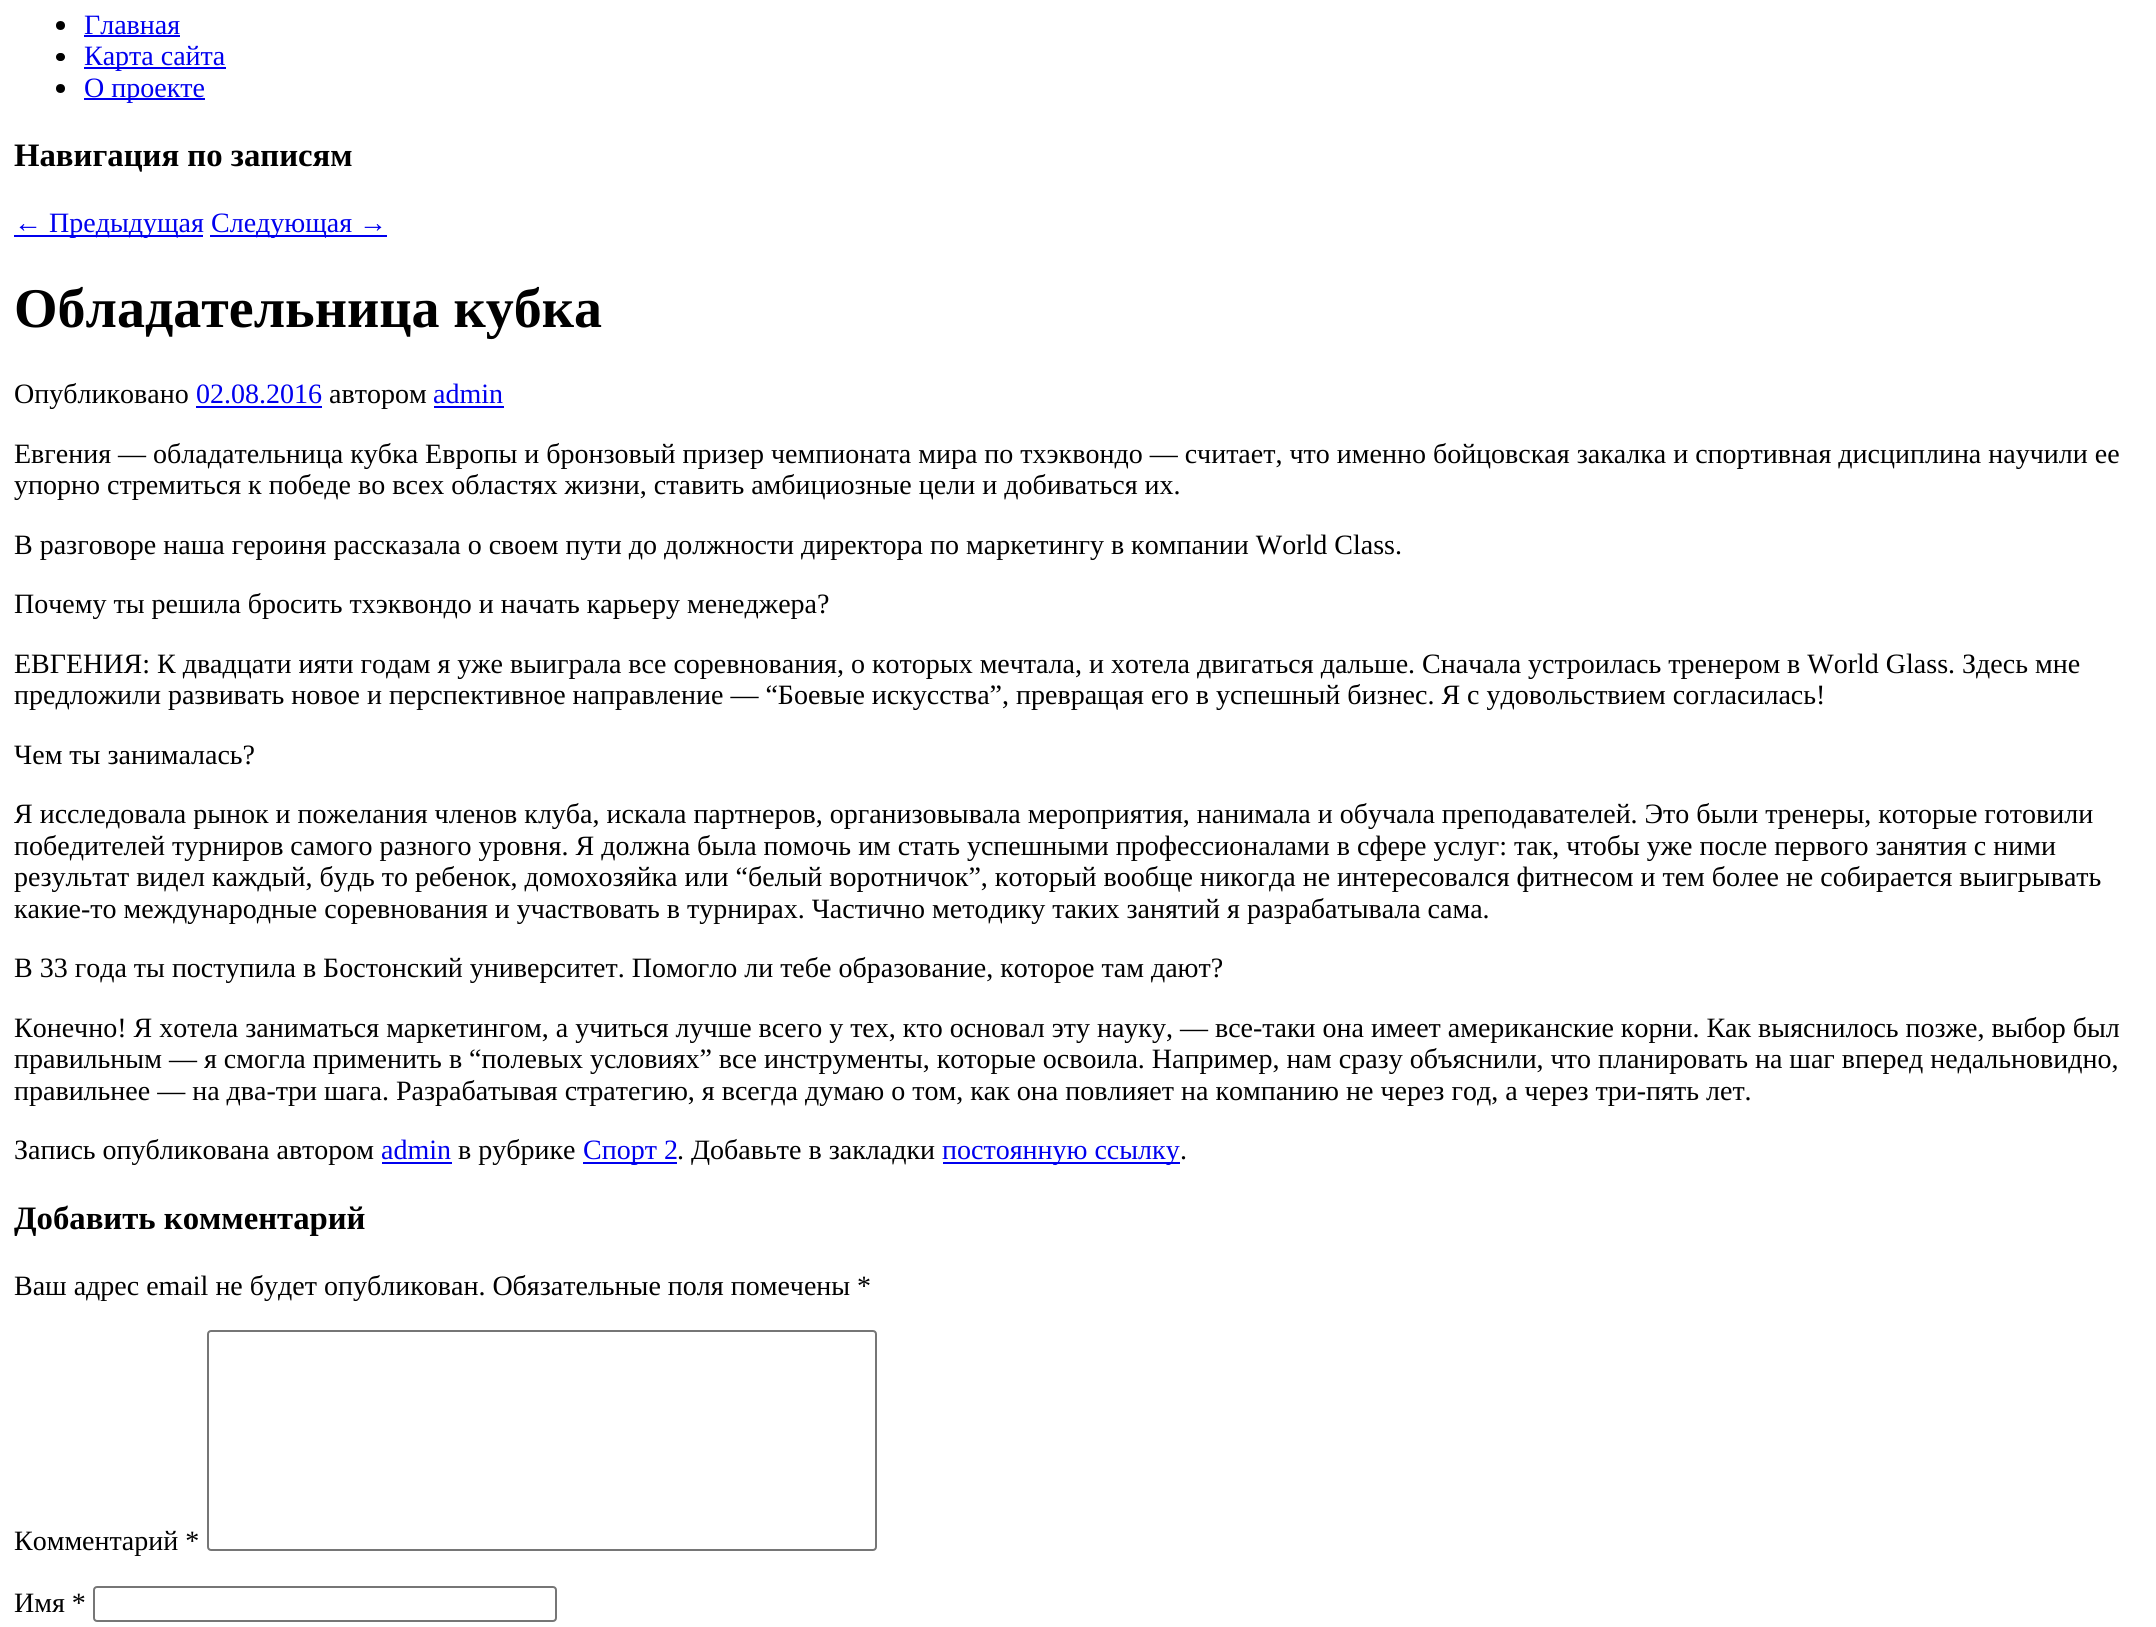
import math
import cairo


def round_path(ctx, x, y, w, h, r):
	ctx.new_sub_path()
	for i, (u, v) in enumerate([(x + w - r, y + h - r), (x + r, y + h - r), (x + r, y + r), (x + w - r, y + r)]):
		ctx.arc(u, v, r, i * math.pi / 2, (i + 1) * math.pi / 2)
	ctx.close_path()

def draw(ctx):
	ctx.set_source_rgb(1, 1, 1)
	ctx.paint()
	ctx.set_source_rgb(0, 0, 0)
	ctx.arc(60.5, 25.5, 4.5, 0, 2 * math.pi)
	ctx.fill()
	ctx.select_font_face('Liberation Serif')
	ctx.set_font_size(28)
	ctx.set_source_rgb(0, 0, 0.933)
	ctx.move_to(84, 34)
	ctx.show_text('Главная')
	ctx.rectangle(84, 35, 96, 2)
	ctx.fill()
	ctx.set_source_rgb(0, 0, 0)
	round_path(ctx, 56, 53, 9, 8, 4)
	ctx.fill()
	ctx.set_source_rgb(0, 0, 0.933)
	ctx.rectangle(84, 67, 142, 2)
	ctx.fill()
	ctx.move_to(84, 65)
	ctx.show_text('Карта сайта')
	ctx.set_source_rgb(0, 0, 0)
	ctx.new_path()
	ctx.arc(60.5, 88.5, 4.5, 0, 2 * math.pi)
	ctx.fill()
	ctx.set_source_rgb(0, 0, 0.933)
	ctx.rectangle(84, 98, 121, 2)
	ctx.fill()
	ctx.move_to(84, 97)
	ctx.show_text('О проекте')
	ctx.select_font_face('Liberation Serif', cairo.FONT_SLANT_NORMAL, cairo.FONT_WEIGHT_BOLD)
	ctx.set_font_size(32.75)
	ctx.set_source_rgb(0, 0, 0)
	ctx.move_to(14, 166)
	ctx.show_text('Навигация по записям')
	ctx.set_source_rgb(0, 0, 0.933)
	ctx.rectangle(14, 235, 189, 2)
	ctx.fill()
	ctx.select_font_face('Liberation Serif')
	ctx.set_font_size(28)
	ctx.move_to(14, 232)
	ctx.show_text('← Предыдущая')
	ctx.rectangle(210, 235, 177, 2)
	ctx.fill()
	ctx.move_to(211, 232)
	ctx.show_text('Следующая →')
	ctx.select_font_face('Liberation Serif', cairo.FONT_SLANT_NORMAL, cairo.FONT_WEIGHT_BOLD)
	ctx.set_font_size(56)
	ctx.set_source_rgb(0, 0, 0)
	ctx.move_to(14, 327)
	ctx.show_text('Обладательница кубка')
	ctx.select_font_face('Liberation Serif')
	ctx.set_font_size(28)
	ctx.move_to(14, 403)
	ctx.show_text('Опубликовано')
	ctx.set_source_rgb(0, 0, 0.933)
	ctx.move_to(196, 403)
	ctx.show_text('02.08.2016')
	ctx.rectangle(196, 406, 126, 2)
	ctx.fill()
	ctx.set_source_rgb(0, 0, 0)
	ctx.move_to(329, 403)
	ctx.show_text('автором')
	ctx.set_source_rgb(0, 0, 0.933)
	ctx.rectangle(434, 406, 70, 2)
	ctx.fill()
	ctx.move_to(433, 403)
	ctx.show_text('admin')
	ctx.set_source_rgb(0, 0, 0)
	for x, y, s in [
		(14, 463, 'Евгения — обладательница кубка Европы и бронзовый призер чемпионата мира по тхэквондо — считает, что именно бойцовская закалка и спортивная дисциплина научили ее'),
		(14, 494, 'упорно стремиться к победе во всех областях жизни, ставить амбициозные цели и добиваться их.'),
		(14, 554, 'В разговоре наша героиня рассказала о своем пути до должности директора по маркетингу в компании World Class.'),
		(14, 613, 'Почему ты решила бросить тхэквондо и начать карьеру менеджера?'),
		(14, 673, 'ЕВГЕНИЯ: К двадцати ияти годам я уже выиграла все соревнования, о которых мечтала, и хотела двигаться дальше. Сначала устроилась тренером в World Glass. Здесь мне'),
		(14, 704, 'предложили развивать новое и перспективное направление — “Боевые искусства”, превращая его в успешный бизнес. Я с удовольствием согласилась!'),
		(14, 764, 'Чем ты занималась?'),
		(14, 823, 'Я исследовала рынок и пожелания членов клуба, искала партнеров, организовывала мероприятия, нанимала и обучала преподавателей. Это были тренеры, которые готовили'),
		(14, 855, 'победителей турниров самого разного уровня. Я должна была помочь им стать успешными профессионалами в сфере услуг: так, чтобы уже после первого занятия с ними'),
		(14, 886, 'результат видел каждый, будь то ребенок, домохозяйка или “белый воротничок”, который вообще никогда не интересовался фитнесом и тем более не собирается выигрывать'),
		(14, 918, 'какие-то международные соревнования и участвовать в турнирах. Частично методику таких занятий я разрабатывала сама.'),
		(14, 977, 'В 33 года ты поступила в Бостонский университет. Помогло ли тебе образование, которое там дают?'),
		(14, 1037, 'Конечно! Я хотела заниматься маркетингом, а учиться лучше всего у тех, кто основал эту науку, — все-таки она имеет американские корни. Как выяснилось позже, выбор был'),
		(14, 1068, 'правильным — я смогла применить в “полевых условиях” все инструменты, которые освоила. Например, нам сразу объяснили, что планировать на шаг вперед недальновидно,'),
		(14, 1100, 'правильнее — на два-три шага. Разрабатывая стратегию, я всегда думаю о том, как она повлияет на компанию не через год, а через три-пять лет.'),
		(14, 1159, 'Запись опубликована автором'),
	]:
		ctx.move_to(x, y)
		ctx.show_text(s)
	ctx.set_source_rgb(0, 0, 0.933)
	ctx.move_to(381, 1159)
	ctx.show_text('admin')
	ctx.rectangle(382, 1162, 70, 2)
	ctx.fill()
	ctx.set_source_rgb(0, 0, 0)
	ctx.move_to(458, 1159)
	ctx.show_text('в рубрике')
	ctx.set_source_rgb(0, 0, 0.933)
	ctx.rectangle(583, 1162, 94, 2)
	ctx.fill()
	ctx.move_to(583, 1159)
	ctx.show_text('Спорт 2')
	ctx.set_source_rgb(0, 0, 0)
	ctx.move_to(677, 1159)
	ctx.show_text('. Добавьте в закладки')
	ctx.set_source_rgb(0, 0, 0.933)
	ctx.rectangle(943, 1162, 237, 2)
	ctx.fill()
	ctx.move_to(942, 1159)
	ctx.show_text('постоянную ссылку')
	ctx.set_source_rgb(0, 0, 0)
	ctx.move_to(1180, 1159)
	ctx.show_text('.')
	ctx.select_font_face('Liberation Serif', cairo.FONT_SLANT_NORMAL, cairo.FONT_WEIGHT_BOLD)
	ctx.set_font_size(32.75)
	ctx.move_to(14, 1229)
	ctx.show_text('Добавить комментарий')
	ctx.select_font_face('Liberation Serif')
	ctx.set_font_size(28)
	ctx.move_to(14, 1295)
	ctx.show_text('Ваш адрес email не будет опубликован. Обязательные поля помечены *')
	ctx.move_to(14, 1550)
	ctx.show_text('Комментарий *')
	round_path(ctx, 208, 1331, 668, 219, 3)
	ctx.set_source_rgb(0.463, 0.463, 0.463)
	ctx.stroke()
	ctx.set_source_rgb(0, 0, 0)
	ctx.move_to(14, 1612)
	ctx.show_text('Имя *')
	round_path(ctx, 94, 1587, 462, 34, 3)
	ctx.set_source_rgb(0.463, 0.463, 0.463)
	ctx.stroke()


surface = cairo.ImageSurface(cairo.FORMAT_RGB24, 2156, 1627)
ctx = cairo.Context(surface)
options = cairo.FontOptions()
options.set_hint_metrics(cairo.HINT_METRICS_OFF)
options.set_hint_style(cairo.HINT_STYLE_NONE)
ctx.set_font_options(options)
ctx.set_miter_limit(4)
draw(ctx)
surface.write_to_png('image.png')
